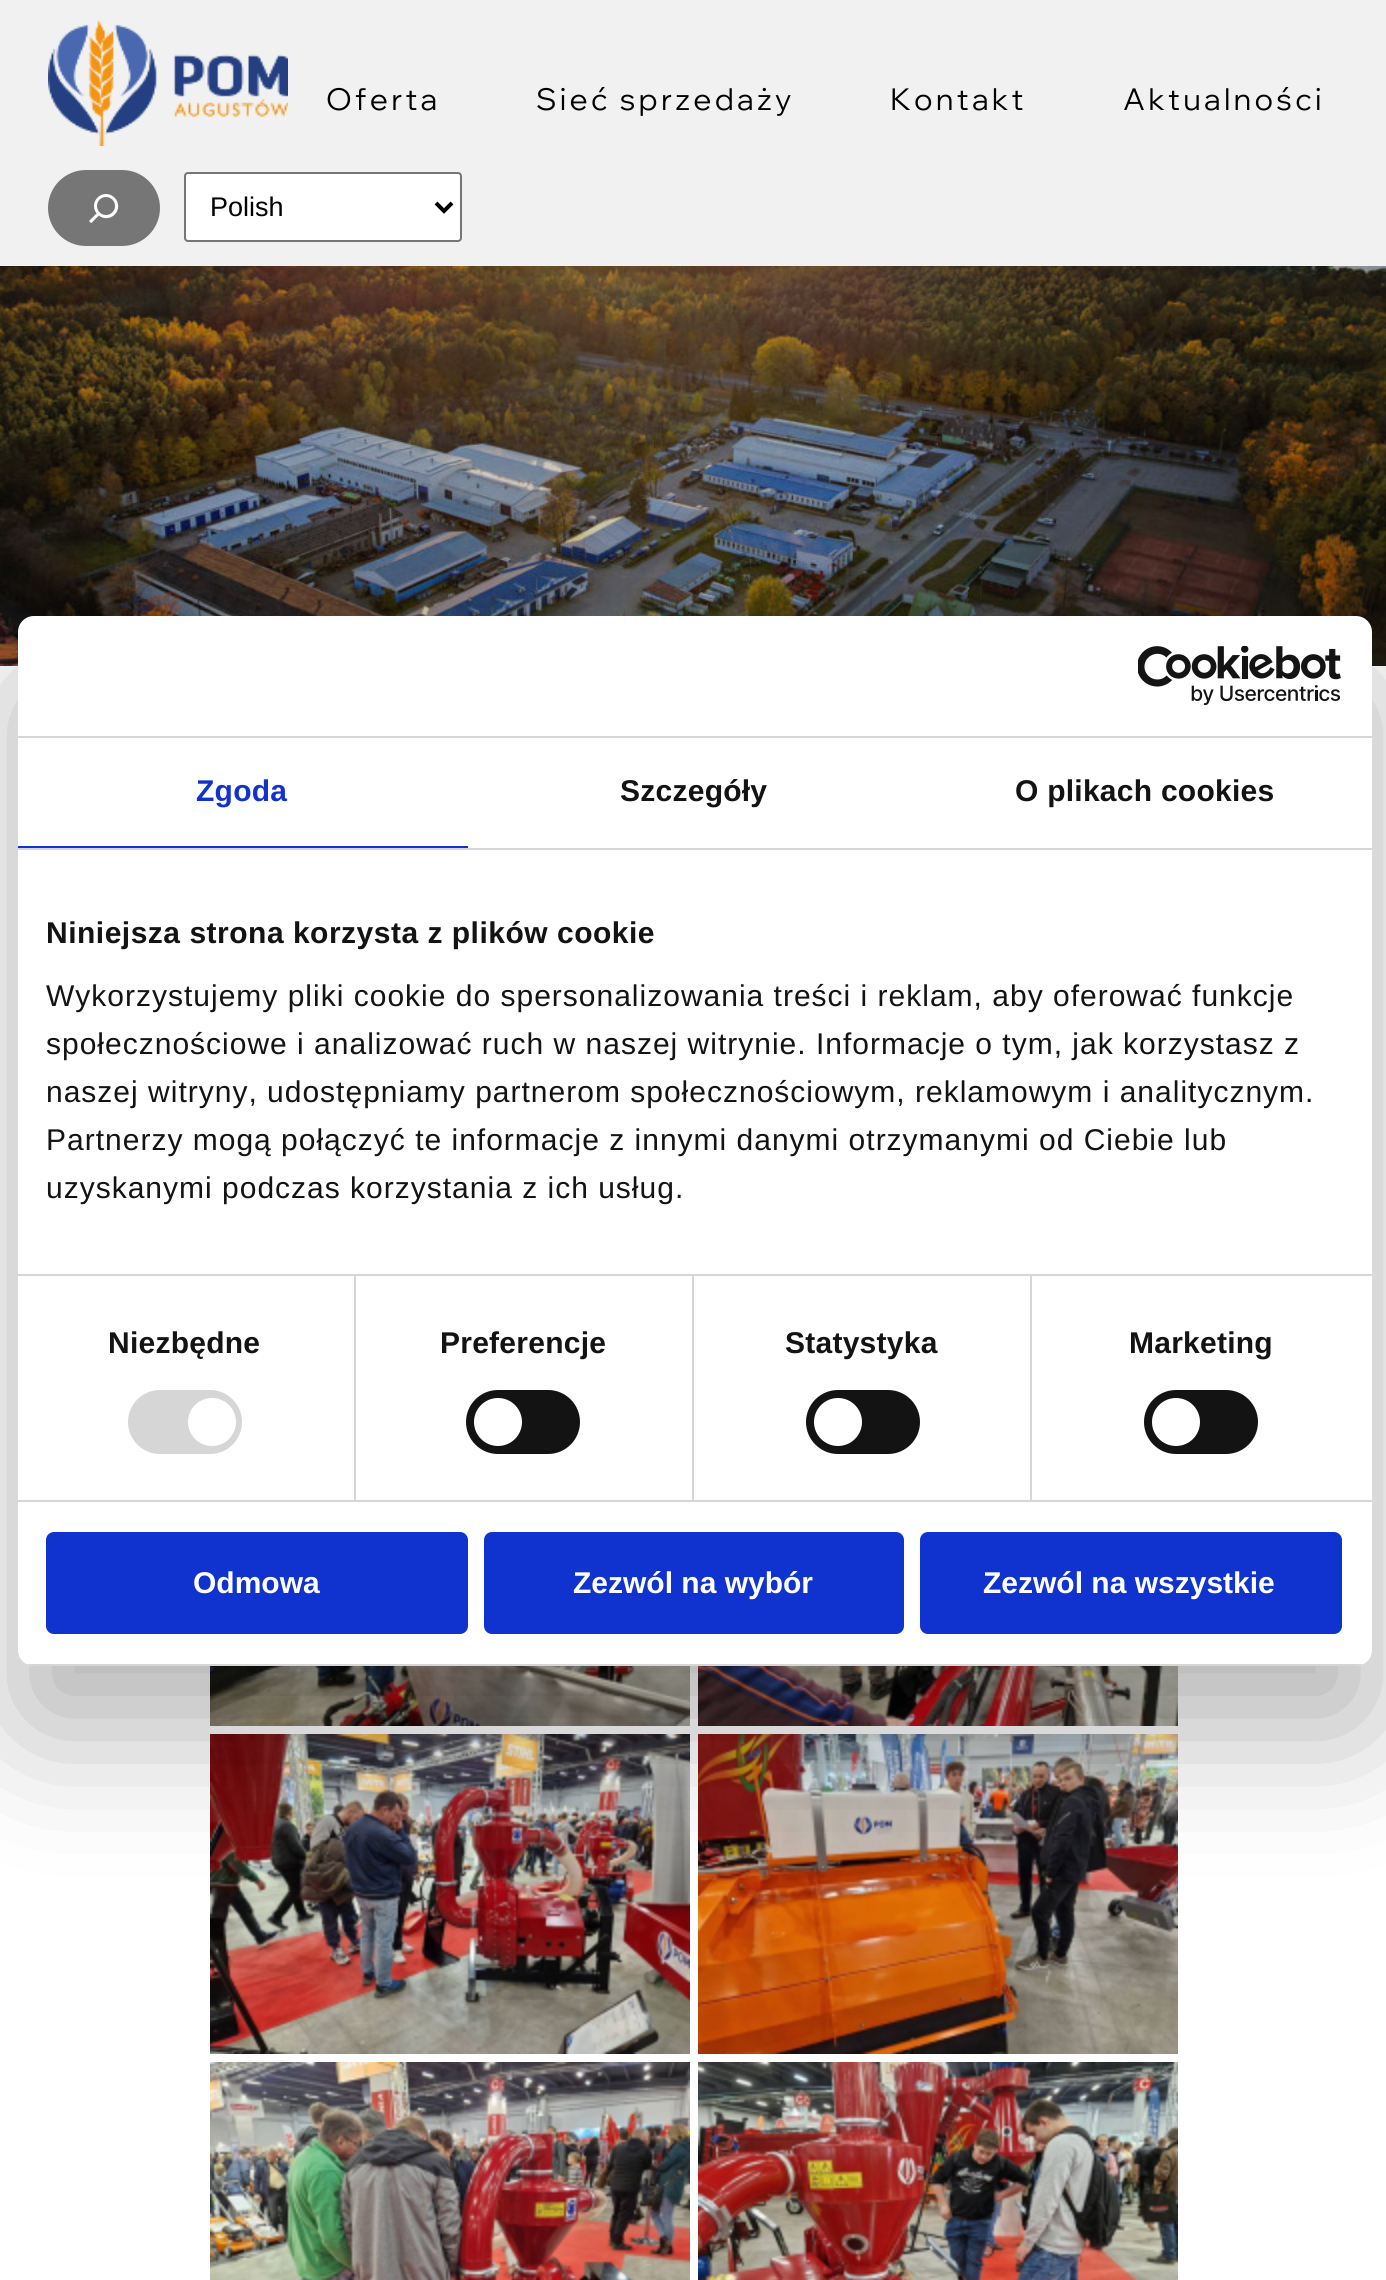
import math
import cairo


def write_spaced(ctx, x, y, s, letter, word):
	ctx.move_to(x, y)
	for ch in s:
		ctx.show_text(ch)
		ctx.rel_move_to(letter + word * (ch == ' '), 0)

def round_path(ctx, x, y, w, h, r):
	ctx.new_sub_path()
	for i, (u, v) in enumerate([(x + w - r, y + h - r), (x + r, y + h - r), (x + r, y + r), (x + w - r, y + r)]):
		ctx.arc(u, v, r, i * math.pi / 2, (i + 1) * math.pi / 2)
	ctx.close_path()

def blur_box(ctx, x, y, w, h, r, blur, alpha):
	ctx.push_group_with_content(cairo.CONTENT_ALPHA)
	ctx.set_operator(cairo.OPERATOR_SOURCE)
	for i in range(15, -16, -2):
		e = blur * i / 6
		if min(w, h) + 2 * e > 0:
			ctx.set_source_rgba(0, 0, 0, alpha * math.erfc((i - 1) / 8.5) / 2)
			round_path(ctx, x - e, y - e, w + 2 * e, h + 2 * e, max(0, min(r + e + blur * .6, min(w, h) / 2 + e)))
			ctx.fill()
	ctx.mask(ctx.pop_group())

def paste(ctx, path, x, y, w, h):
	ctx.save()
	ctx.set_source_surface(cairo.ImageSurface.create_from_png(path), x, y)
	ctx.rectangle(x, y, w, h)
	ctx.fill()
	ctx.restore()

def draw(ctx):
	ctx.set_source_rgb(1, 1, 1)
	ctx.paint()
	ctx.set_source_rgb(0.945, 0.945, 0.945)
	ctx.rectangle(0, 0, 1386, 266)
	ctx.fill()
	paste(ctx, 'media/1.png', 48, 20, 240, 126)
	ctx.select_font_face('Wix Madefor Display')
	ctx.set_font_size(30.25)
	ctx.set_source_rgb(0, 0, 0)
	for x, y, s in [
		(326, 110, 'Oferta'),
		(536, 110, 'Sieć sprzedaży'),
		(890, 110, 'Kontakt'),
		(1123, 110, 'Aktualności'),
	]:
		write_spaced(ctx, x, y, s, 3.25, 0)
	ctx.set_source_rgb(0.463, 0.463, 0.463)
	round_path(ctx, 48, 170, 112, 76, 38)
	ctx.fill()
	paste(ctx, 'media/2.png', 89, 194, 30, 30)
	ctx.set_source_rgb(1, 1, 1)
	round_path(ctx, 185, 173, 276, 68, 3)
	ctx.fill_preserve()
	ctx.set_source_rgb(0.463, 0.463, 0.463)
	ctx.stroke()
	ctx.new_path()
	ctx.move_to(436, 203)
	ctx.line_to(444, 211)
	ctx.line_to(452, 203)
	ctx.set_source_rgb(0, 0, 0)
	ctx.set_line_width(4)
	ctx.stroke()
	ctx.select_font_face('Liberation Sans')
	ctx.set_font_size(27)
	ctx.move_to(210, 216)
	ctx.show_text('Polish')
	paste(ctx, 'media/3.png', 0, 266, 1386, 400)
	paste(ctx, 'media/4.png', 210, 1666, 480, 60)
	paste(ctx, 'media/5.png', 698, 1666, 480, 60)
	paste(ctx, 'media/6.png', 210, 1734, 480, 320)
	paste(ctx, 'media/7.png', 698, 1734, 480, 320)
	paste(ctx, 'media/8.png', 210, 2062, 480, 218)
	paste(ctx, 'media/9.png', 698, 2062, 480, 218)
	ctx.set_source_rgb(0, 0, 0)
	blur_box(ctx, 18, 680, 1354, 1050, 16, 68, 0.3)
	ctx.set_source_rgb(1, 1, 1)
	round_path(ctx, 18, 616, 1354, 1050, 16)
	ctx.fill()
	ctx.set_source_rgb(0.839, 0.839, 0.839)
	ctx.rectangle(18, 736, 1354, 2)
	ctx.fill()
	paste(ctx, 'media/10.png', 1138, 646, 203, 60)
	ctx.rectangle(18, 848, 1354, 2)
	ctx.fill()
	ctx.set_source_rgb(0.063, 0.196, 0.812)
	ctx.rectangle(18, 846, 450, 2)
	ctx.fill()
	ctx.select_font_face('Liberation Sans', cairo.FONT_SLANT_NORMAL, cairo.FONT_WEIGHT_BOLD)
	ctx.set_font_size(30)
	write_spaced(ctx, 196, 801, 'Zgoda', 0.25, 0)
	ctx.set_source_rgb(0.078, 0.078, 0.078)
	write_spaced(ctx, 620, 801, 'Szczegóły', 0.25, 0)
	write_spaced(ctx, 1015, 801, 'O plikach cookies', 0.25, 0)
	ctx.set_source_rgb(0.839, 0.839, 0.839)
	ctx.rectangle(18, 1274, 1354, 2)
	ctx.fill()
	ctx.set_source_rgb(0.078, 0.078, 0.078)
	write_spaced(ctx, 46, 943, 'Niniejsza strona korzysta z plików cookie', 0.5, 0)
	ctx.select_font_face('Liberation Sans')
	for x, y, s in [
		(46, 1006, 'Wykorzystujemy pliki cookie do spersonalizowania treści i reklam, aby oferować funkcje'),
		(46, 1054, 'społecznościowe i analizować ruch w naszej witrynie. Informacje o tym, jak korzystasz z'),
		(46, 1102, 'naszej witryny, udostępniamy partnerom społecznościowym, reklamowym i analitycznym.'),
		(46, 1150, 'Partnerzy mogą połączyć te informacje z innymi danymi otrzymanymi od Ciebie lub'),
		(46, 1198, 'uzyskanymi podczas korzystania z ich usług.'),
	]:
		write_spaced(ctx, x, y, s, 1, 0)
	ctx.set_source_rgb(0.839, 0.839, 0.839)
	ctx.rectangle(18, 1500, 1354, 2)
	ctx.fill()
	ctx.rectangle(354, 1276, 2, 224)
	ctx.fill()
	ctx.select_font_face('Liberation Sans', cairo.FONT_SLANT_NORMAL, cairo.FONT_WEIGHT_BOLD)
	ctx.set_source_rgb(0.078, 0.078, 0.078)
	write_spaced(ctx, 108, 1353, 'Niezbędne', 0.25, 0)
	ctx.set_source_rgb(0.839, 0.839, 0.839)
	round_path(ctx, 128, 1390, 114, 64, 32)
	ctx.fill()
	ctx.set_source_rgb(1, 1, 1)
	ctx.arc(212, 1422, 24, 0, 2 * math.pi)
	ctx.fill()
	ctx.set_source_rgb(0.839, 0.839, 0.839)
	ctx.rectangle(692, 1276, 2, 224)
	ctx.fill()
	ctx.set_source_rgb(0.078, 0.078, 0.078)
	write_spaced(ctx, 440, 1353, 'Preferencje', 0.25, 0)
	round_path(ctx, 466, 1390, 114, 64, 32)
	ctx.fill()
	ctx.set_source_rgb(1, 1, 1)
	ctx.arc(498, 1422, 24, 0, 2 * math.pi)
	ctx.fill()
	ctx.set_source_rgb(0.839, 0.839, 0.839)
	ctx.rectangle(1030, 1276, 2, 224)
	ctx.fill()
	ctx.set_source_rgb(0.078, 0.078, 0.078)
	write_spaced(ctx, 785, 1353, 'Statystyka', 0.25, 0)
	round_path(ctx, 806, 1390, 114, 64, 32)
	ctx.fill()
	ctx.set_source_rgb(1, 1, 1)
	ctx.arc(838, 1422, 24, 0, 2 * math.pi)
	ctx.fill()
	ctx.set_source_rgb(0.078, 0.078, 0.078)
	write_spaced(ctx, 1129, 1353, 'Marketing', 0.25, 0)
	round_path(ctx, 1144, 1390, 114, 64, 32)
	ctx.fill()
	ctx.set_source_rgb(1, 1, 1)
	ctx.arc(1176, 1422, 24, 0, 2 * math.pi)
	ctx.fill()
	ctx.save()
	round_path(ctx, 18, 616, 1354, 1050, 16)
	ctx.clip()
	ctx.set_source_rgb(0.839, 0.839, 0.839)
	ctx.rectangle(18, 1664, 1354, 2)
	ctx.fill()
	ctx.restore()
	ctx.set_source_rgb(0.063, 0.196, 0.812)
	round_path(ctx, 48, 1534, 418, 98, 6)
	ctx.fill_preserve()
	ctx.stroke()
	ctx.set_source_rgb(1, 1, 1)
	ctx.move_to(193, 1593)
	ctx.show_text('Odmowa')
	ctx.set_source_rgb(0.063, 0.196, 0.812)
	round_path(ctx, 486, 1534, 416, 98, 6)
	ctx.fill_preserve()
	ctx.stroke()
	ctx.set_source_rgb(1, 1, 1)
	ctx.move_to(573, 1593)
	ctx.show_text('Zezwól na wybór')
	ctx.set_source_rgb(0.063, 0.196, 0.812)
	round_path(ctx, 922, 1534, 418, 98, 6)
	ctx.fill_preserve()
	ctx.stroke()
	ctx.set_source_rgb(1, 1, 1)
	ctx.move_to(983, 1593)
	ctx.show_text('Zezwól na wszystkie')


surface = cairo.ImageSurface(cairo.FORMAT_RGB24, 1386, 2280)
ctx = cairo.Context(surface)
options = cairo.FontOptions()
options.set_hint_metrics(cairo.HINT_METRICS_OFF)
options.set_hint_style(cairo.HINT_STYLE_NONE)
ctx.set_font_options(options)
ctx.set_miter_limit(4)
draw(ctx)
surface.write_to_png('image.png')
